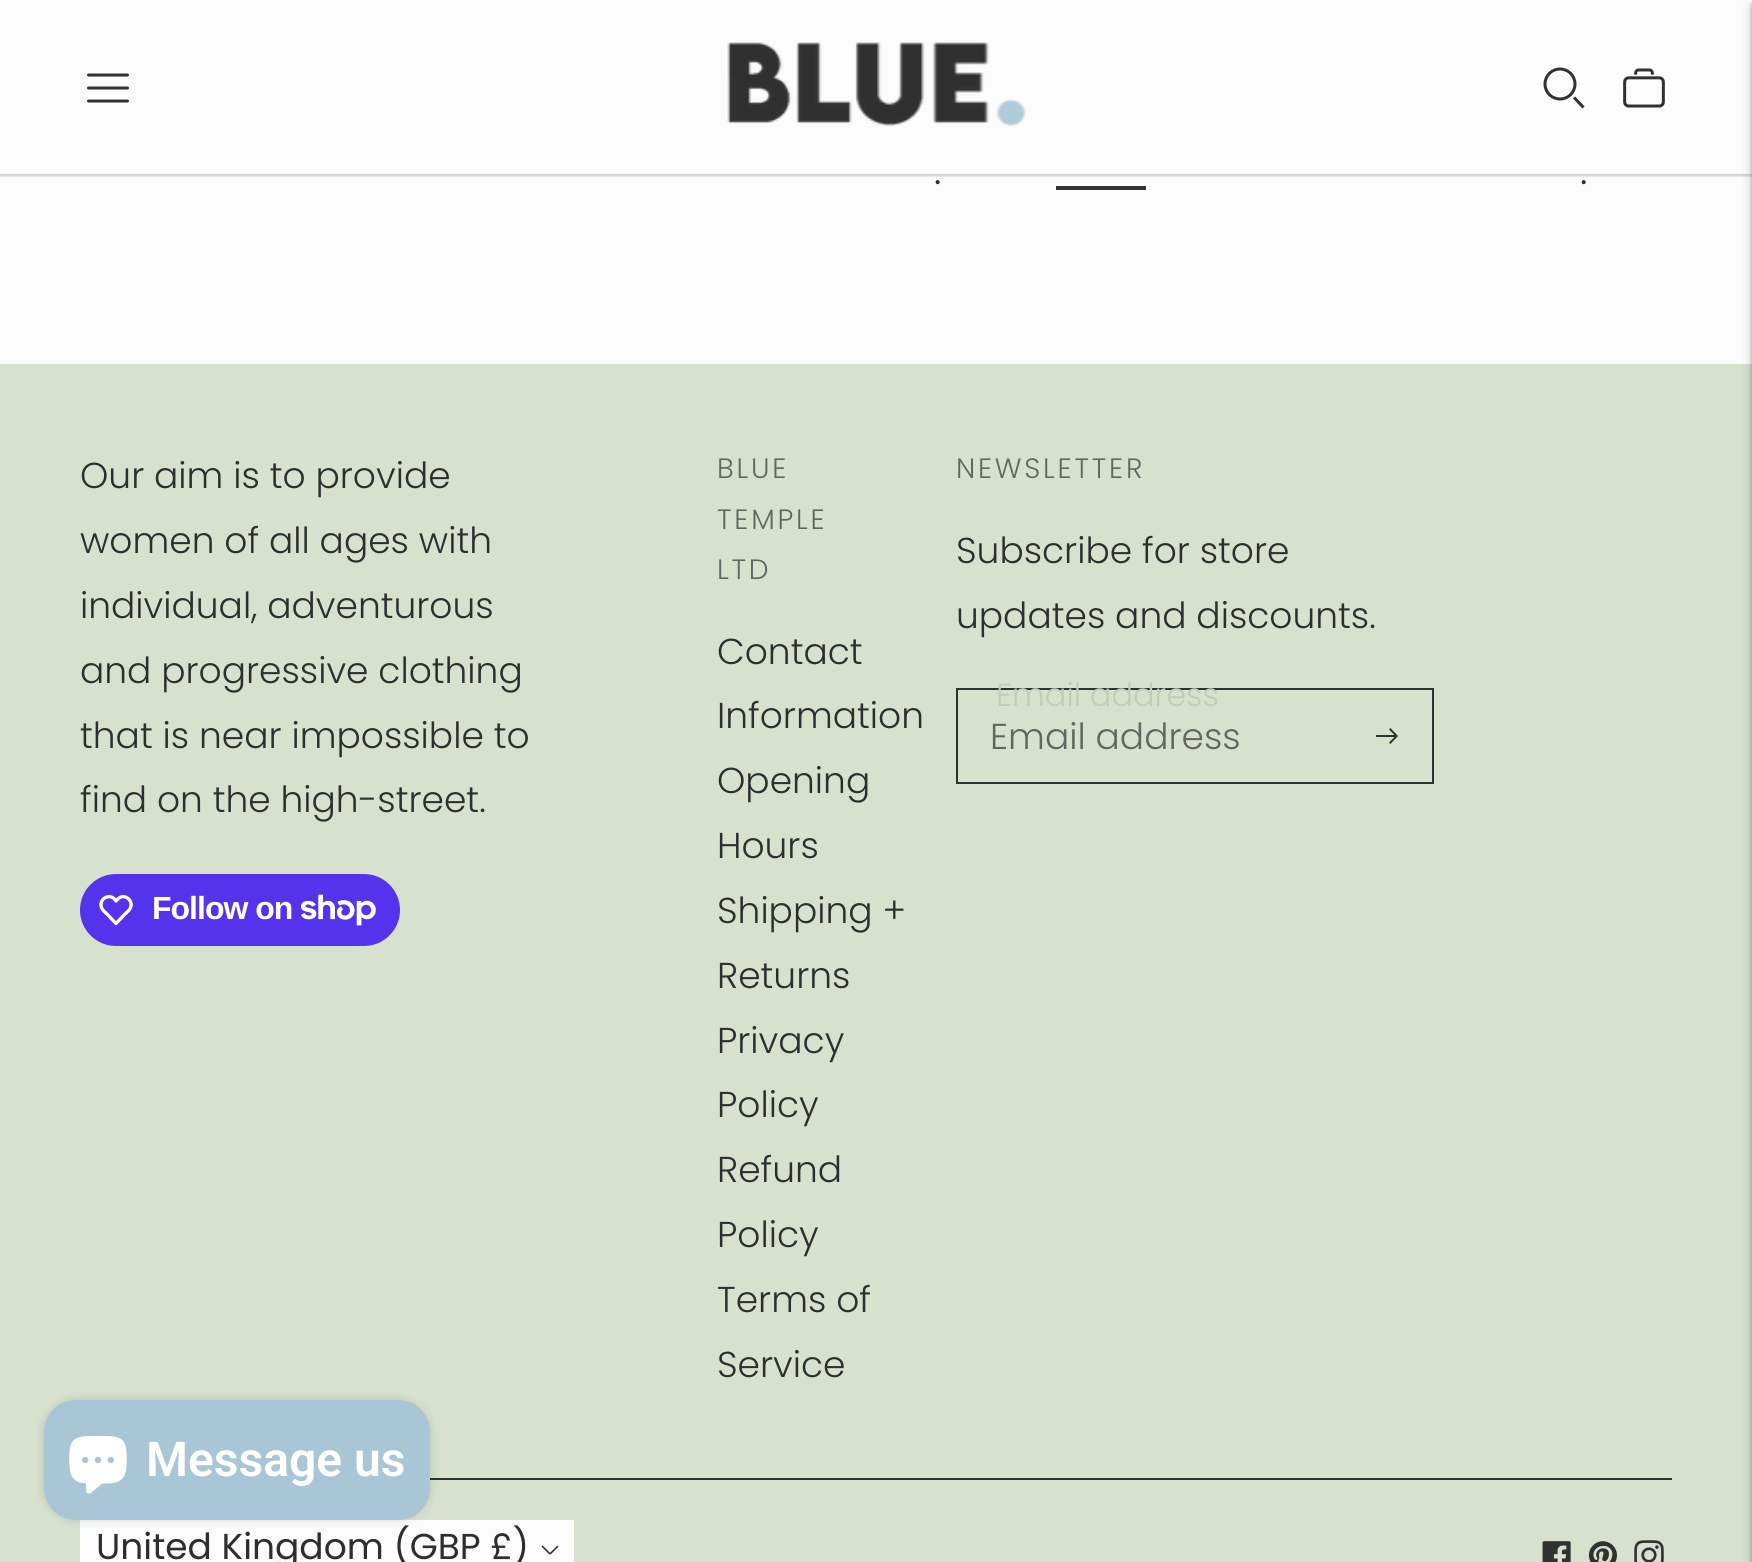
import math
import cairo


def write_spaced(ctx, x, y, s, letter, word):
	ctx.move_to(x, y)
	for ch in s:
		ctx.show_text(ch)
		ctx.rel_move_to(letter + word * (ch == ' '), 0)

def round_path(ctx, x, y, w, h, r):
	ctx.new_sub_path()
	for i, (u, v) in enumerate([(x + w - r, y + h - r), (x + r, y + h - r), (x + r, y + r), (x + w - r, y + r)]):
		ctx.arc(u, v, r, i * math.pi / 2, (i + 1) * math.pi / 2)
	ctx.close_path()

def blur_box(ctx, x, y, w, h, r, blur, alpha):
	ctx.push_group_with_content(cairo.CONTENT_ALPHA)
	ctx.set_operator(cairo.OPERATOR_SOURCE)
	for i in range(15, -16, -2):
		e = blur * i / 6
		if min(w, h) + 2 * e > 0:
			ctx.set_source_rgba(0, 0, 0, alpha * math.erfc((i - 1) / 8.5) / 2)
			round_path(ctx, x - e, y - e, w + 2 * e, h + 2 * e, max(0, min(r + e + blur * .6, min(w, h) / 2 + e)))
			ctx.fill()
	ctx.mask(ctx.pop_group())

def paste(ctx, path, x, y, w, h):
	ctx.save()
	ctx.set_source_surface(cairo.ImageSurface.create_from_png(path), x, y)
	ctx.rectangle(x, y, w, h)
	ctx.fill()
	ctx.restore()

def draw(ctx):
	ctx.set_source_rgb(0.988, 0.988, 0.988)
	ctx.paint()
	ctx.save()
	ctx.rectangle(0, 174, 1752, 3)
	ctx.clip()
	ctx.set_source_rgb(0, 0, 0)
	blur_box(ctx, 0, 2, 1752, 174, 0, 1, 0.2)
	ctx.restore()
	ctx.new_path()
	ctx.move_to(88.5, 88)
	ctx.line_to(127.5, 88)
	ctx.move_to(88.5, 75)
	ctx.line_to(127.5, 75)
	ctx.move_to(88.5, 101)
	ctx.line_to(127.5, 101)
	ctx.set_source_rgb(0.192, 0.192, 0.192)
	ctx.set_line_width(3)
	ctx.set_line_cap(cairo.LINE_CAP_ROUND)
	ctx.set_line_join(cairo.LINE_JOIN_ROUND)
	ctx.stroke()
	paste(ctx, 'media/1.png', 727, 42, 299, 84)
	ctx.arc(1560, 84, 15, 0, 2 * math.pi)
	ctx.set_line_cap(cairo.LINE_CAP_BUTT)
	ctx.set_line_join(cairo.LINE_JOIN_MITER)
	ctx.stroke()
	ctx.new_path()
	ctx.move_to(1574, 97.5)
	ctx.line_to(1583.5, 107.5)
	ctx.stroke()
	paste(ctx, 'media/2.png', 1623, 68, 42, 40)
	ctx.set_source_rgb(0.847, 0.882, 0.808)
	ctx.rectangle(0, 364, 1752, 1198)
	ctx.fill()
	ctx.set_source_rgb(0, 0, 0)
	blur_box(ctx, 1752, 8, 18, 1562, 0, 6, 0.1)
	blur_box(ctx, 1752, 4, 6, 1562, 0, 2, 0.15)
	ctx.select_font_face('Poppins Light')
	ctx.set_font_size(40)
	ctx.set_source_rgb(0.18, 0.18, 0.18)
	ctx.move_to(934, 184)
	ctx.show_text('.')
	ctx.move_to(1580, 184)
	ctx.show_text('.')
	ctx.set_source_rgb(0.2, 0.2, 0.2)
	ctx.rectangle(1056, 186, 90, 4)
	ctx.fill()
	ctx.set_source_rgb(0, 0, 0)
	blur_box(ctx, 1752, 8, 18, 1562, 0, 6, 0.1)
	blur_box(ctx, 1752, 4, 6, 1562, 0, 2, 0.15)
	ctx.set_font_size(36)
	ctx.set_source_rgb(0.18, 0.18, 0.18)
	for x, y, s in [
		(80, 488, 'Our aim is to provide'),
		(80, 553, 'women of all ages with'),
		(80, 618, 'individual, adventurous'),
		(80, 683, 'and progressive clothing'),
		(80, 748, 'that is near impossible to'),
		(80, 812, 'find on the high-street.'),
	]:
		ctx.move_to(x, y)
		ctx.show_text(s)
	ctx.set_source_rgb(0.329, 0.2, 0.922)
	round_path(ctx, 80, 874, 320, 72, 36)
	ctx.fill()
	ctx.new_path()
	ctx.move_to(114.5, 899)
	ctx.line_to(116, 901)
	ctx.curve_to(117.5, 899.5, 119, 897.5, 121, 897)
	ctx.curve_to(127, 895, 133, 901.5, 130.5, 907.5)
	ctx.curve_to(129.5, 910.5, 126.5, 912.5, 124.5, 914.5)
	ctx.line_to(116, 923.5)
	ctx.line_to(107.5, 914.5)
	ctx.curve_to(105.5, 912.5, 102.5, 910.5, 101.5, 907.5)
	ctx.curve_to(98.5, 899.5, 108.5, 893, 114.5, 899)
	ctx.close_path()
	ctx.set_source_rgb(1, 1, 1)
	ctx.set_line_width(3.3)
	ctx.set_line_join(cairo.LINE_JOIN_ROUND)
	ctx.stroke()
	ctx.select_font_face('Liberation Sans', cairo.FONT_SLANT_NORMAL, cairo.FONT_WEIGHT_BOLD)
	ctx.set_font_size(32)
	write_spaced(ctx, 152, 919, 'Follow on', -1, 0)
	paste(ctx, 'media/3.png', 301, 894, 75, 32)
	ctx.select_font_face('Poppins Light')
	ctx.set_font_size(28)
	ctx.set_source_rgb(0.388, 0.4, 0.376)
	for x, y, s in [
		(717, 478, 'BLUE'),
		(717, 529, 'TEMPLE'),
		(717, 579, 'LTD'),
	]:
		write_spaced(ctx, x, y, s, 2.75, 0)
	ctx.set_font_size(36)
	ctx.set_source_rgb(0.18, 0.18, 0.18)
	for x, y, s in [
		(717, 664, 'Contact'),
		(717, 728, 'Information'),
		(717, 793, 'Opening'),
		(717, 858, 'Hours'),
		(717, 923, 'Shipping +'),
		(717, 988, 'Returns'),
		(717, 1053, 'Privacy'),
		(717, 1117, 'Policy'),
		(717, 1182, 'Refund'),
		(717, 1247, 'Policy'),
		(717, 1312, 'Terms of'),
		(717, 1377, 'Service'),
	]:
		ctx.move_to(x, y)
		ctx.show_text(s)
	ctx.set_font_size(28)
	ctx.set_source_rgb(0.388, 0.4, 0.376)
	write_spaced(ctx, 956, 478, 'NEWSLETTER', 2.75, 0)
	ctx.set_font_size(36)
	ctx.set_source_rgb(0.18, 0.18, 0.18)
	ctx.move_to(956, 563)
	ctx.show_text('Subscribe for store')
	ctx.move_to(956, 628)
	ctx.show_text('updates and discounts.')
	ctx.rectangle(957, 689, 476, 94)
	ctx.set_source_rgb(0.192, 0.192, 0.192)
	ctx.set_line_width(2)
	ctx.set_line_join(cairo.LINE_JOIN_MITER)
	ctx.stroke()
	ctx.set_font_size(32)
	ctx.set_source_rgb(0.765, 0.796, 0.729)
	ctx.move_to(996, 706)
	ctx.show_text('Email address')
	ctx.set_font_size(36)
	ctx.set_source_rgb(0.388, 0.4, 0.376)
	ctx.move_to(990, 749)
	ctx.show_text('Email address')
	paste(ctx, 'media/4.png', 1376, 728, 22, 16)
	ctx.set_source_rgb(0.192, 0.192, 0.192)
	ctx.rectangle(430, 1478, 1242, 2)
	ctx.fill()
	ctx.set_source_rgb(0.988, 0.988, 0.988)
	ctx.rectangle(80, 1520, 494, 42)
	ctx.fill()
	ctx.select_font_face('Poppins')
	ctx.set_source_rgb(0.18, 0.18, 0.18)
	ctx.move_to(96, 1559)
	ctx.show_text('United Kingdom (GBP £)')
	ctx.new_path()
	ctx.move_to(542.5, 1546.5)
	ctx.line_to(549.5, 1553.5)
	ctx.curve_to(550, 1553.5, 550, 1553.5, 550.5, 1553.5)
	ctx.line_to(557.5, 1546.5)
	ctx.set_source_rgb(0.192, 0.192, 0.192)
	ctx.set_line_width(1.6)
	ctx.set_line_cap(cairo.LINE_CAP_ROUND)
	ctx.set_line_join(cairo.LINE_JOIN_ROUND)
	ctx.stroke()
	paste(ctx, 'media/5.png', 1542, 1541, 29, 21)
	paste(ctx, 'media/6.png', 1588, 1541, 29, 21)
	paste(ctx, 'media/7.png', 1634, 1540, 30, 22)
	ctx.set_source_rgb(0, 0, 0)
	blur_box(ctx, 44, 1400, 386, 120, 32, 5, 0.15)
	ctx.set_source_rgb(0.659, 0.776, 0.839)
	round_path(ctx, 44, 1400, 386, 120, 32)
	ctx.fill()
	paste(ctx, 'media/8.png', 69, 1436, 58, 58)
	ctx.select_font_face('Roboto SemiBold')
	ctx.set_font_size(48)
	ctx.set_source_rgb(1, 1, 1)
	ctx.move_to(146, 1476)
	ctx.show_text('Message us')


surface = cairo.ImageSurface(cairo.FORMAT_RGB24, 1752, 1562)
ctx = cairo.Context(surface)
options = cairo.FontOptions()
options.set_hint_metrics(cairo.HINT_METRICS_OFF)
options.set_hint_style(cairo.HINT_STYLE_NONE)
ctx.set_font_options(options)
ctx.set_miter_limit(4)
draw(ctx)
surface.write_to_png('image.png')
